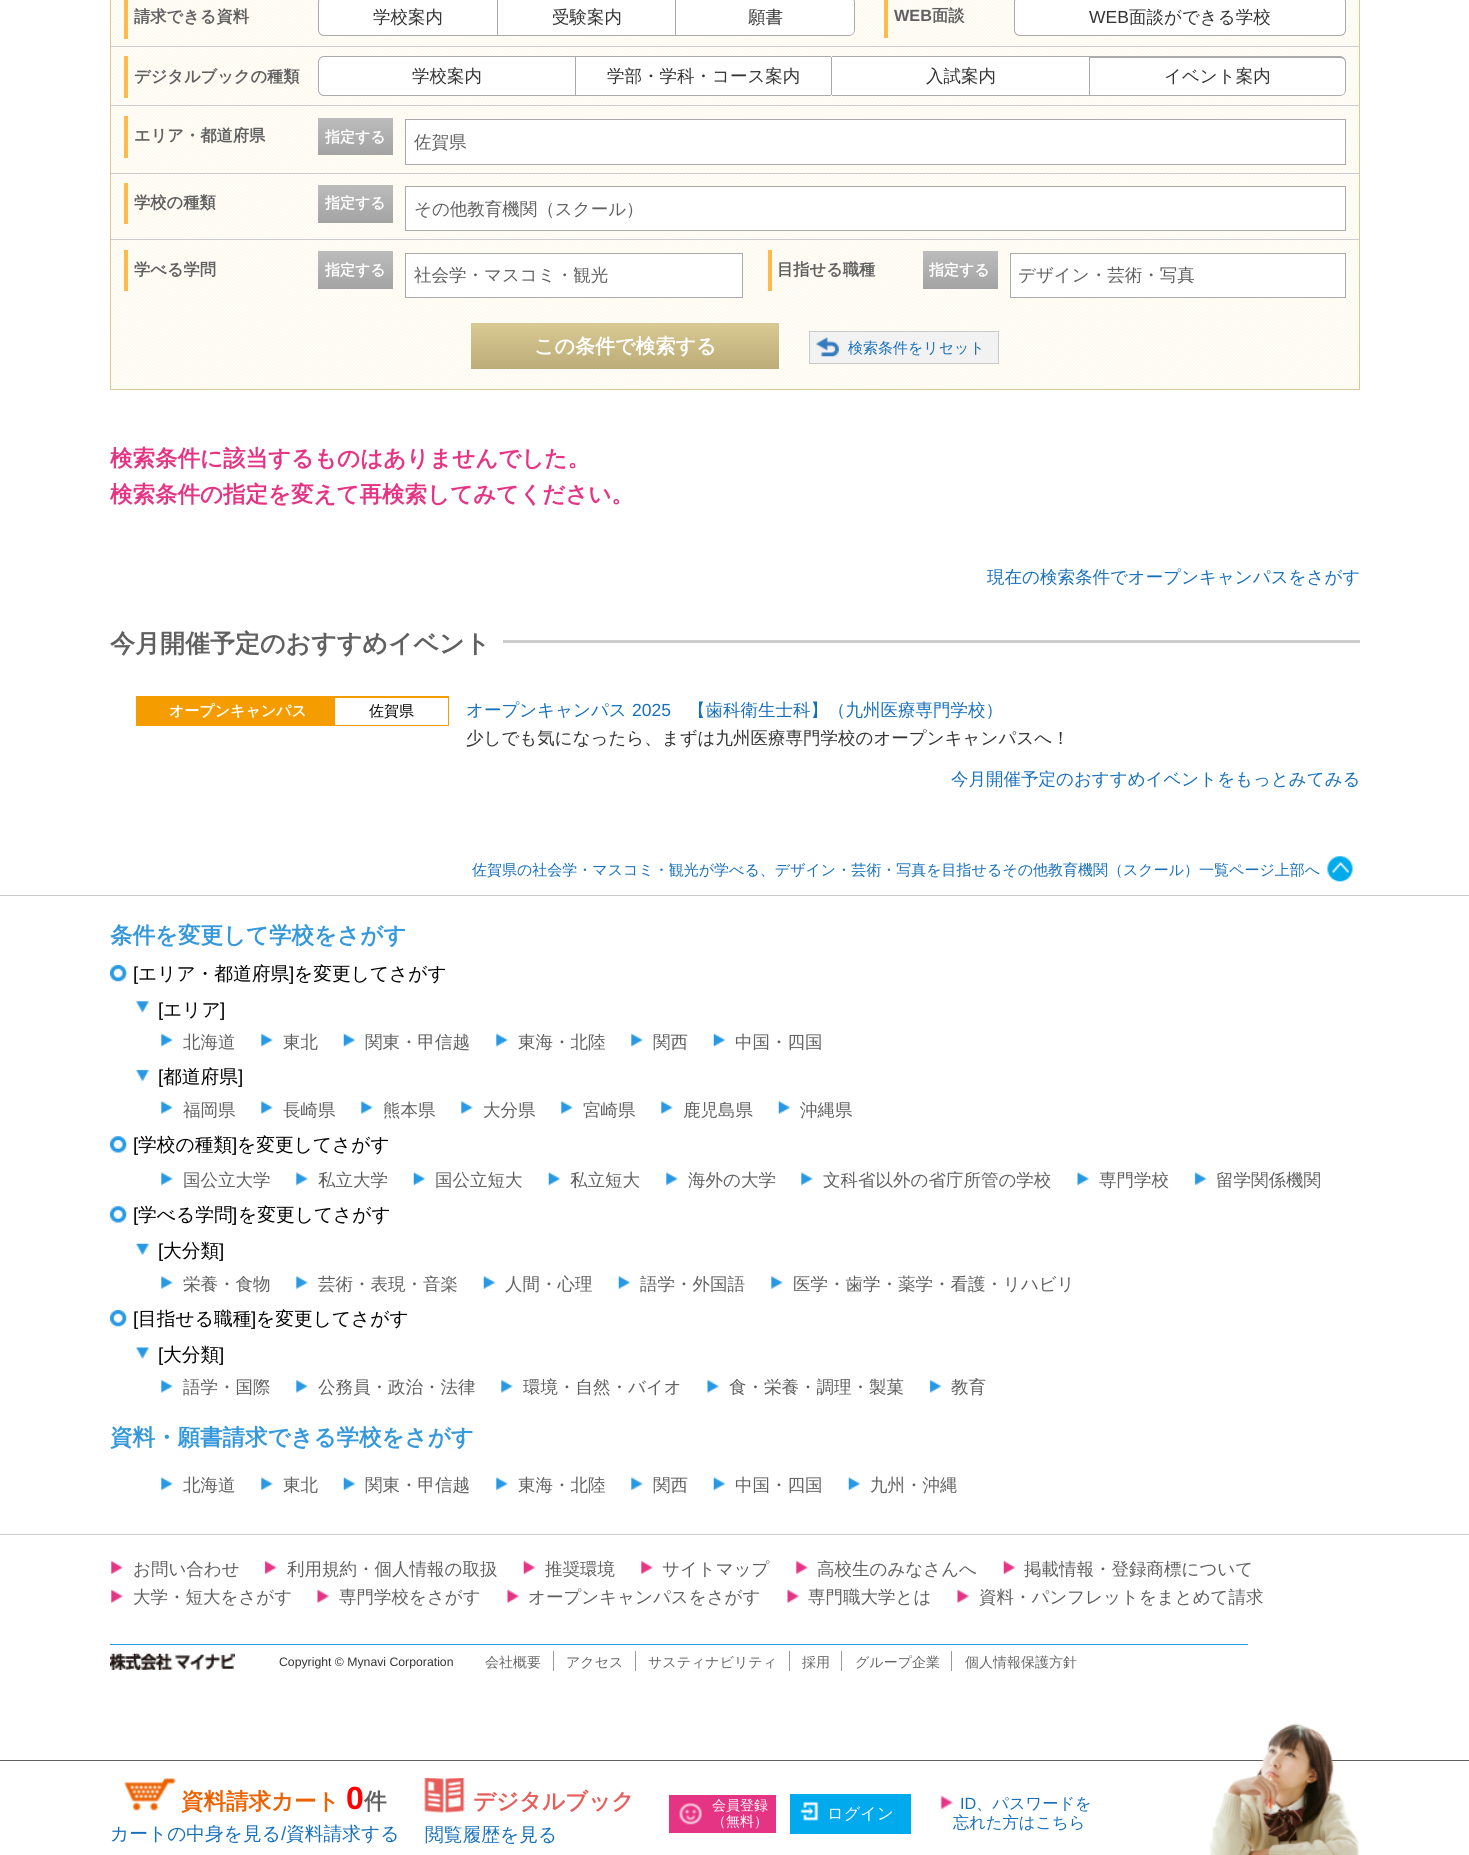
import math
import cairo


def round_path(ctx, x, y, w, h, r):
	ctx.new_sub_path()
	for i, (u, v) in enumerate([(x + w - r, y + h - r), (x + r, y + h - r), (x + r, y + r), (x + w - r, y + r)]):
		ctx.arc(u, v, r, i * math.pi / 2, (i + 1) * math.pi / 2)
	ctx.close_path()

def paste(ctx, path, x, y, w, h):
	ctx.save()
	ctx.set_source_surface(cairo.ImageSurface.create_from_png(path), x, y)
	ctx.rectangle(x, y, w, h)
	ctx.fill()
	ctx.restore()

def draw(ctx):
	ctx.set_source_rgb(1, 1, 1)
	ctx.paint()
	paste(ctx, 'media/1.png', 111, 0, 1248, 389)
	ctx.set_source_rgb(0.851, 0.788, 0.576)
	ctx.rectangle(1359, 0, 1, 390)
	ctx.rectangle(110, 389, 1250, 1)
	ctx.rectangle(110, 0, 1, 390)
	ctx.fill()
	ctx.set_source_rgb(1, 0.729, 0.298)
	ctx.rectangle(124, 0, 4, 39)
	ctx.fill()
	ctx.select_font_face('WenQuanYi Zen Hei', cairo.FONT_SLANT_NORMAL, cairo.FONT_WEIGHT_BOLD)
	ctx.set_font_size(16.25)
	ctx.set_source_rgb(0.376, 0.376, 0.376)
	ctx.move_to(134, 22)
	ctx.show_text('請求できる資料')
	ctx.set_source_rgb(1, 1, 1)
	ctx.new_path()
	ctx.move_to(324, -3.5)
	ctx.line_to(497.5, -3.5)
	ctx.line_to(497.5, 35.5)
	ctx.line_to(324, 35.5)
	ctx.curve_to(321, 35.5, 318.5, 33, 318.5, 30)
	ctx.line_to(318.5, 2)
	ctx.curve_to(318.5, -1, 321, -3.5, 324, -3.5)
	ctx.close_path()
	ctx.fill_preserve()
	ctx.set_source_rgb(0.667, 0.667, 0.667)
	ctx.set_line_width(1)
	ctx.stroke()
	ctx.select_font_face('WenQuanYi Zen Hei Medium')
	ctx.set_font_size(17.5)
	ctx.set_source_rgb(0.2, 0.2, 0.2)
	ctx.move_to(373, 23)
	ctx.show_text('学校案内')
	ctx.set_source_rgb(1, 1, 1)
	ctx.rectangle(498, 0, 177, 35)
	ctx.fill()
	ctx.set_source_rgb(0.667, 0.667, 0.667)
	ctx.rectangle(675, 0, 1, 36)
	ctx.rectangle(498, 35, 178, 1)
	ctx.fill()
	ctx.set_source_rgb(0.2, 0.2, 0.2)
	ctx.move_to(552, 23)
	ctx.show_text('受験案内')
	ctx.set_source_rgb(1, 1, 1)
	ctx.new_path()
	ctx.move_to(676, -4)
	ctx.line_to(849, -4)
	ctx.curve_to(852.5, -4, 855, -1.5, 855, 2)
	ctx.line_to(855, 30)
	ctx.curve_to(855, 33.5, 852.5, 36, 849, 36)
	ctx.line_to(676, 36)
	ctx.close_path()
	ctx.fill()
	ctx.set_source_rgb(0.667, 0.667, 0.667)
	ctx.set_fill_rule(cairo.FILL_RULE_EVEN_ODD)
	ctx.new_path()
	ctx.move_to(676, -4)
	ctx.line_to(849, -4)
	ctx.curve_to(852, -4, 855, -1, 855, 2)
	ctx.line_to(855, 30)
	ctx.curve_to(855, 33, 852, 36, 849, 36)
	ctx.line_to(676, 36)
	ctx.close_path()
	ctx.move_to(676, -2)
	ctx.line_to(849, -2)
	ctx.curve_to(852, -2, 854, 0, 854, 2)
	ctx.line_to(854, 30)
	ctx.curve_to(854, 33, 852, 35, 849, 35)
	ctx.line_to(676, 35)
	ctx.close_path()
	ctx.fill()
	ctx.set_source_rgb(0.2, 0.2, 0.2)
	ctx.move_to(748, 23)
	ctx.show_text('願書')
	ctx.set_source_rgb(1, 0.729, 0.298)
	ctx.rectangle(884, 0, 4, 38)
	ctx.fill()
	ctx.select_font_face('Liberation Sans', cairo.FONT_SLANT_NORMAL, cairo.FONT_WEIGHT_BOLD)
	ctx.set_font_size(16.25)
	ctx.set_source_rgb(0.376, 0.376, 0.376)
	ctx.move_to(894, 21)
	ctx.show_text('WEB')
	ctx.select_font_face('WenQuanYi Zen Hei', cairo.FONT_SLANT_NORMAL, cairo.FONT_WEIGHT_BOLD)
	ctx.move_to(932, 21)
	ctx.show_text('面談')
	ctx.set_source_rgb(1, 1, 1)
	round_path(ctx, 1014.5, -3.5, 331, 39, 5.5)
	ctx.fill_preserve()
	ctx.set_source_rgb(0.667, 0.667, 0.667)
	ctx.stroke()
	ctx.select_font_face('Liberation Sans')
	ctx.set_font_size(17.5)
	ctx.set_source_rgb(0.2, 0.2, 0.2)
	ctx.move_to(1089, 23)
	ctx.show_text('WEB')
	ctx.select_font_face('WenQuanYi Zen Hei Medium')
	ctx.move_to(1129, 23)
	ctx.show_text('面談ができる学校')
	ctx.set_source_rgb(1, 0.729, 0.298)
	ctx.rectangle(124, 56, 4, 42)
	ctx.fill()
	ctx.select_font_face('WenQuanYi Zen Hei', cairo.FONT_SLANT_NORMAL, cairo.FONT_WEIGHT_BOLD)
	ctx.set_font_size(16.25)
	ctx.set_source_rgb(0.376, 0.376, 0.376)
	ctx.move_to(134, 82)
	ctx.show_text('デジタルブックの種類')
	ctx.set_source_rgb(0.8, 0.8, 0.8)
	ctx.rectangle(111, 46, 1249, 1)
	ctx.fill()
	ctx.set_source_rgb(1, 1, 1)
	ctx.new_path()
	ctx.move_to(324, 56.5)
	ctx.line_to(575.5, 56.5)
	ctx.line_to(575.5, 95.5)
	ctx.line_to(324, 95.5)
	ctx.curve_to(321, 95.5, 318.5, 93, 318.5, 90)
	ctx.line_to(318.5, 62)
	ctx.curve_to(318.5, 59, 321, 56.5, 324, 56.5)
	ctx.close_path()
	ctx.fill_preserve()
	ctx.set_source_rgb(0.667, 0.667, 0.667)
	ctx.stroke()
	ctx.select_font_face('WenQuanYi Zen Hei Medium')
	ctx.set_font_size(17.5)
	ctx.set_source_rgb(0.2, 0.2, 0.2)
	ctx.move_to(412, 82)
	ctx.show_text('学校案内')
	ctx.set_source_rgb(1, 1, 1)
	ctx.rectangle(576, 57, 513, 38)
	ctx.fill()
	ctx.set_source_rgb(0.667, 0.667, 0.667)
	ctx.rectangle(576, 56, 514, 1)
	ctx.rectangle(831, 56, 1, 40)
	ctx.rectangle(576, 95, 257, 1)
	ctx.fill()
	ctx.set_source_rgb(0.2, 0.2, 0.2)
	ctx.move_to(607, 82)
	ctx.show_text('学部・学科・コース案内')
	ctx.set_source_rgb(0.667, 0.667, 0.667)
	ctx.rectangle(1089, 56, 1, 40)
	ctx.fill()
	ctx.rectangle(833, 95, 257, 1)
	ctx.fill()
	ctx.set_source_rgb(0.2, 0.2, 0.2)
	ctx.move_to(926, 82)
	ctx.show_text('入試案内')
	ctx.set_source_rgb(1, 1, 1)
	ctx.new_path()
	ctx.move_to(1090, 56)
	ctx.line_to(1340, 56)
	ctx.curve_to(1343.5, 56, 1346, 58.5, 1346, 62)
	ctx.line_to(1346, 90)
	ctx.curve_to(1346, 93.5, 1343.5, 96, 1340, 96)
	ctx.line_to(1090, 96)
	ctx.close_path()
	ctx.fill()
	ctx.set_source_rgb(0.667, 0.667, 0.667)
	ctx.new_path()
	ctx.move_to(1090, 56)
	ctx.line_to(1340, 56)
	ctx.curve_to(1343, 56, 1346, 59, 1346, 62)
	ctx.line_to(1346, 90)
	ctx.curve_to(1346, 93, 1343, 96, 1340, 96)
	ctx.line_to(1090, 96)
	ctx.close_path()
	ctx.move_to(1090, 58)
	ctx.line_to(1340, 58)
	ctx.curve_to(1343, 58, 1345, 60, 1345, 62)
	ctx.line_to(1345, 90)
	ctx.curve_to(1345, 93, 1343, 95, 1340, 95)
	ctx.line_to(1090, 95)
	ctx.close_path()
	ctx.fill()
	ctx.set_source_rgb(0.2, 0.2, 0.2)
	ctx.move_to(1164, 82)
	ctx.show_text('イベント案内')
	ctx.set_source_rgb(1, 0.729, 0.298)
	ctx.rectangle(124, 116, 4, 42)
	ctx.fill()
	ctx.select_font_face('WenQuanYi Zen Hei', cairo.FONT_SLANT_NORMAL, cairo.FONT_WEIGHT_BOLD)
	ctx.set_font_size(16.25)
	ctx.set_source_rgb(0.376, 0.376, 0.376)
	ctx.move_to(134, 141)
	ctx.show_text('エリア・都道府県')
	ctx.set_source_rgb(0.8, 0.8, 0.8)
	ctx.rectangle(111, 105, 1249, 1)
	ctx.fill()
	gradient = cairo.LinearGradient(355, 118, 355, 155)
	gradient.add_color_stop_rgba(0, 0.737, 0.737, 0.737, 1)
	gradient.add_color_stop_rgba(1, 0.639, 0.639, 0.639, 1)
	ctx.set_source(gradient)
	ctx.rectangle(318, 118, 75, 37)
	ctx.fill()
	ctx.set_font_size(15)
	ctx.set_source_rgb(1, 1, 1)
	ctx.move_to(325, 142)
	ctx.show_text('指定する')
	ctx.rectangle(405.5, 119.5, 940, 45)
	ctx.fill_preserve()
	ctx.set_source_rgb(0.667, 0.667, 0.667)
	ctx.stroke()
	ctx.select_font_face('WenQuanYi Zen Hei Medium')
	ctx.set_font_size(17.5)
	ctx.set_source_rgb(0.376, 0.376, 0.376)
	ctx.move_to(414, 148)
	ctx.show_text('佐賀県')
	ctx.set_source_rgb(1, 0.729, 0.298)
	ctx.rectangle(124, 183, 4, 41)
	ctx.fill()
	ctx.select_font_face('WenQuanYi Zen Hei', cairo.FONT_SLANT_NORMAL, cairo.FONT_WEIGHT_BOLD)
	ctx.set_font_size(16.25)
	ctx.set_source_rgb(0.376, 0.376, 0.376)
	ctx.move_to(134, 208)
	ctx.show_text('学校の種類')
	ctx.set_source_rgb(0.8, 0.8, 0.8)
	ctx.rectangle(111, 173, 1249, 1)
	ctx.fill()
	gradient = cairo.LinearGradient(355, 185, 355, 223)
	gradient.add_color_stop_rgba(0, 0.737, 0.737, 0.737, 1)
	gradient.add_color_stop_rgba(1, 0.639, 0.639, 0.639, 1)
	ctx.set_source(gradient)
	ctx.rectangle(318, 185, 75, 38)
	ctx.fill()
	ctx.set_font_size(15)
	ctx.set_source_rgb(1, 1, 1)
	ctx.move_to(325, 208)
	ctx.show_text('指定する')
	ctx.rectangle(405.5, 186.5, 940, 44)
	ctx.fill_preserve()
	ctx.set_source_rgb(0.667, 0.667, 0.667)
	ctx.stroke()
	ctx.select_font_face('WenQuanYi Zen Hei Medium')
	ctx.set_font_size(17.5)
	ctx.set_source_rgb(0.376, 0.376, 0.376)
	ctx.move_to(414, 215)
	ctx.show_text('その他教育機関（スクール）')
	ctx.set_source_rgb(1, 0.729, 0.298)
	ctx.rectangle(124, 250, 4, 41)
	ctx.fill()
	ctx.select_font_face('WenQuanYi Zen Hei', cairo.FONT_SLANT_NORMAL, cairo.FONT_WEIGHT_BOLD)
	ctx.set_font_size(16.25)
	ctx.set_source_rgb(0.376, 0.376, 0.376)
	ctx.move_to(134, 275)
	ctx.show_text('学べる学問')
	gradient = cairo.LinearGradient(355, 251, 355, 289)
	gradient.add_color_stop_rgba(0, 0.737, 0.737, 0.737, 1)
	gradient.add_color_stop_rgba(1, 0.639, 0.639, 0.639, 1)
	ctx.set_source(gradient)
	ctx.rectangle(318, 251, 75, 38)
	ctx.fill()
	ctx.set_font_size(15)
	ctx.set_source_rgb(1, 1, 1)
	ctx.move_to(325, 275)
	ctx.show_text('指定する')
	ctx.rectangle(405.5, 253.5, 337, 44)
	ctx.fill_preserve()
	ctx.set_source_rgb(0.667, 0.667, 0.667)
	ctx.stroke()
	ctx.select_font_face('WenQuanYi Zen Hei Medium')
	ctx.set_font_size(17.5)
	ctx.set_source_rgb(0.376, 0.376, 0.376)
	ctx.move_to(414, 281)
	ctx.show_text('社会学・マスコミ・観光')
	ctx.set_source_rgb(1, 0.729, 0.298)
	ctx.rectangle(768, 250, 4, 41)
	ctx.fill()
	ctx.select_font_face('WenQuanYi Zen Hei', cairo.FONT_SLANT_NORMAL, cairo.FONT_WEIGHT_BOLD)
	ctx.set_font_size(16.25)
	ctx.set_source_rgb(0.376, 0.376, 0.376)
	ctx.move_to(777, 275)
	ctx.show_text('目指せる職種')
	ctx.set_source_rgb(0.8, 0.8, 0.8)
	ctx.rectangle(111, 239, 1249, 1)
	ctx.fill()
	gradient = cairo.LinearGradient(960, 251, 960, 289)
	gradient.add_color_stop_rgba(0, 0.737, 0.737, 0.737, 1)
	gradient.add_color_stop_rgba(1, 0.639, 0.639, 0.639, 1)
	ctx.set_source(gradient)
	ctx.rectangle(923, 251, 75, 38)
	ctx.fill()
	ctx.set_font_size(15)
	ctx.set_source_rgb(1, 1, 1)
	ctx.move_to(929, 275)
	ctx.show_text('指定する')
	ctx.rectangle(1010.5, 253.5, 335, 44)
	ctx.fill_preserve()
	ctx.set_source_rgb(0.667, 0.667, 0.667)
	ctx.stroke()
	ctx.select_font_face('WenQuanYi Zen Hei Medium')
	ctx.set_font_size(17.5)
	ctx.set_source_rgb(0.376, 0.376, 0.376)
	ctx.move_to(1018, 281)
	ctx.show_text('デザイン・芸術・写真')
	gradient = cairo.LinearGradient(625, 323, 625, 369)
	gradient.add_color_stop_rgba(0, 0.851, 0.788, 0.576, 1)
	gradient.add_color_stop_rgba(1, 0.737, 0.675, 0.467, 1)
	ctx.set_source(gradient)
	ctx.rectangle(471, 323, 308, 46)
	ctx.fill()
	ctx.select_font_face('WenQuanYi Zen Hei', cairo.FONT_SLANT_NORMAL, cairo.FONT_WEIGHT_BOLD)
	ctx.set_font_size(20)
	ctx.set_source_rgb(1, 1, 1)
	ctx.move_to(534, 353)
	ctx.show_text('この条件で検索する')
	ctx.set_source_rgb(0.949, 0.949, 0.949)
	ctx.rectangle(810, 332, 188, 31)
	ctx.fill()
	paste(ctx, 'media/2.png', 816, 337, 23, 20)
	ctx.rectangle(809.5, 331.5, 189, 32)
	ctx.set_source_rgb(0.788, 0.788, 0.788)
	ctx.stroke()
	ctx.select_font_face('WenQuanYi Zen Hei Medium')
	ctx.set_font_size(15)
	ctx.set_source_rgb(0.09, 0.435, 0.729)
	ctx.move_to(848, 353)
	ctx.show_text('検索条件をリセット')
	ctx.select_font_face('WenQuanYi Zen Hei', cairo.FONT_SLANT_NORMAL, cairo.FONT_WEIGHT_BOLD)
	ctx.set_font_size(22.5)
	ctx.set_source_rgb(0.902, 0.204, 0.518)
	ctx.move_to(110, 466)
	ctx.show_text('検索条件に該当するものはありませんでした。')
	ctx.move_to(110, 502)
	ctx.show_text('検索条件の指定を変えて再検索してみてください。')
	ctx.select_font_face('WenQuanYi Zen Hei Medium')
	ctx.set_font_size(17.5)
	ctx.set_source_rgb(0.09, 0.435, 0.729)
	ctx.move_to(987, 583)
	ctx.show_text('現在の検索条件でオープンキャンパスをさがす')
	ctx.set_source_rgb(0.8, 0.8, 0.8)
	ctx.rectangle(503, 640, 857, 3)
	ctx.fill()
	ctx.select_font_face('WenQuanYi Zen Hei', cairo.FONT_SLANT_NORMAL, cairo.FONT_WEIGHT_BOLD)
	ctx.set_font_size(25)
	ctx.set_source_rgb(0.376, 0.376, 0.376)
	ctx.move_to(110, 652)
	ctx.show_text('今月開催予定のおすすめイベント')
	ctx.set_source_rgb(0.957, 0.612, 0)
	ctx.rectangle(136, 696, 313, 30)
	ctx.fill()
	ctx.set_font_size(15)
	ctx.set_source_rgb(1, 1, 1)
	ctx.move_to(169, 716)
	ctx.show_text('オープンキャンパス')
	ctx.rectangle(335, 698, 113, 27)
	ctx.fill()
	ctx.select_font_face('WenQuanYi Zen Hei Medium')
	ctx.set_source_rgb(0, 0, 0)
	ctx.move_to(369, 716)
	ctx.show_text('佐賀県')
	ctx.set_font_size(17.5)
	ctx.set_source_rgb(0.09, 0.435, 0.729)
	ctx.move_to(466, 716)
	ctx.show_text('オープンキャンパス')
	ctx.select_font_face('Liberation Sans')
	ctx.move_to(632, 716)
	ctx.show_text('2025')
	ctx.select_font_face('WenQuanYi Zen Hei Medium')
	ctx.move_to(688, 716)
	ctx.show_text('【歯科衛生士科】（九州医療専門学校）')
	ctx.set_source_rgb(0.2, 0.2, 0.2)
	ctx.move_to(466, 744)
	ctx.show_text('少しでも気になったら、まずは九州医療専門学校のオープンキャンパスへ！')
	ctx.set_source_rgb(0.09, 0.435, 0.729)
	ctx.move_to(951, 785)
	ctx.show_text('今月開催予定のおすすめイベントをもっとみてみる')
	ctx.set_font_size(15)
	ctx.move_to(472, 875)
	ctx.show_text('佐賀県の社会学・マスコミ・観光が学べる、デザイン・芸術・写真を目指せるその他教育機関（スクール）一覧ページ上部へ')
	paste(ctx, 'media/3.png', 1327, 856, 26, 26)
	ctx.set_source_rgb(0.8, 0.8, 0.8)
	ctx.rectangle(0, 895, 1469, 1)
	ctx.fill()
	ctx.select_font_face('WenQuanYi Zen Hei', cairo.FONT_SLANT_NORMAL, cairo.FONT_WEIGHT_BOLD)
	ctx.set_font_size(22.5)
	ctx.set_source_rgb(0.204, 0.596, 0.859)
	ctx.move_to(110, 943)
	ctx.show_text('条件を変更して学校をさがす')
	paste(ctx, 'media/4.png', 110, 965, 17, 17)
	ctx.select_font_face('Liberation Sans')
	ctx.set_font_size(18.75)
	ctx.set_source_rgb(0, 0, 0)
	ctx.move_to(133, 980)
	ctx.show_text('[')
	ctx.select_font_face('WenQuanYi Zen Hei Medium')
	ctx.move_to(138, 980)
	ctx.show_text('エリア・都道府県')
	ctx.select_font_face('Liberation Sans')
	ctx.move_to(289, 980)
	ctx.show_text(']')
	ctx.select_font_face('WenQuanYi Zen Hei Medium')
	ctx.move_to(294, 980)
	ctx.show_text('を変更してさがす')
	paste(ctx, 'media/5.png', 136, 1001, 13, 12)
	ctx.select_font_face('Liberation Sans')
	ctx.move_to(158, 1016)
	ctx.show_text('[')
	ctx.select_font_face('WenQuanYi Zen Hei Medium')
	ctx.move_to(163, 1016)
	ctx.show_text('エリア')
	ctx.select_font_face('Liberation Sans')
	ctx.move_to(220, 1016)
	ctx.show_text(']')
	paste(ctx, 'media/6.png', 161, 1033, 12, 14)
	ctx.select_font_face('WenQuanYi Zen Hei Medium')
	ctx.set_font_size(17.5)
	ctx.set_source_rgb(0.376, 0.376, 0.376)
	ctx.move_to(183, 1048)
	ctx.show_text('北海道')
	paste(ctx, 'media/6.png', 261, 1033, 12, 14)
	ctx.move_to(283, 1048)
	ctx.show_text('東北')
	paste(ctx, 'media/7.png', 343, 1033, 13, 14)
	ctx.move_to(365, 1048)
	ctx.show_text('関東・甲信越')
	paste(ctx, 'media/8.png', 496, 1033, 12, 14)
	ctx.move_to(518, 1048)
	ctx.show_text('東海・北陸')
	paste(ctx, 'media/6.png', 631, 1033, 12, 14)
	ctx.move_to(653, 1048)
	ctx.show_text('関西')
	paste(ctx, 'media/9.png', 713, 1033, 13, 14)
	ctx.move_to(735, 1048)
	ctx.show_text('中国・四国')
	paste(ctx, 'media/10.png', 136, 1069, 13, 13)
	ctx.select_font_face('Liberation Sans')
	ctx.set_font_size(18.75)
	ctx.set_source_rgb(0, 0, 0)
	ctx.move_to(158, 1083)
	ctx.show_text('[')
	ctx.select_font_face('WenQuanYi Zen Hei Medium')
	ctx.move_to(163, 1083)
	ctx.show_text('都道府県')
	ctx.select_font_face('Liberation Sans')
	ctx.move_to(238, 1083)
	ctx.show_text(']')
	paste(ctx, 'media/11.png', 161, 1101, 12, 13)
	ctx.select_font_face('WenQuanYi Zen Hei Medium')
	ctx.set_font_size(17.5)
	ctx.set_source_rgb(0.376, 0.376, 0.376)
	ctx.move_to(183, 1116)
	ctx.show_text('福岡県')
	paste(ctx, 'media/11.png', 261, 1101, 12, 13)
	ctx.move_to(283, 1116)
	ctx.show_text('長崎県')
	paste(ctx, 'media/11.png', 361, 1101, 12, 13)
	ctx.move_to(383, 1116)
	ctx.show_text('熊本県')
	paste(ctx, 'media/12.png', 461, 1101, 12, 13)
	ctx.move_to(483, 1116)
	ctx.show_text('大分県')
	paste(ctx, 'media/12.png', 561, 1101, 12, 13)
	ctx.move_to(583, 1116)
	ctx.show_text('宮崎県')
	paste(ctx, 'media/11.png', 661, 1101, 12, 13)
	ctx.move_to(683, 1116)
	ctx.show_text('鹿児島県')
	paste(ctx, 'media/13.png', 778, 1101, 13, 13)
	ctx.move_to(800, 1116)
	ctx.show_text('沖縄県')
	paste(ctx, 'media/14.png', 110, 1136, 17, 17)
	ctx.select_font_face('Liberation Sans')
	ctx.set_font_size(18.75)
	ctx.set_source_rgb(0, 0, 0)
	ctx.move_to(133, 1151)
	ctx.show_text('[')
	ctx.select_font_face('WenQuanYi Zen Hei Medium')
	ctx.move_to(138, 1151)
	ctx.show_text('学校の種類')
	ctx.select_font_face('Liberation Sans')
	ctx.move_to(232, 1151)
	ctx.show_text(']')
	ctx.select_font_face('WenQuanYi Zen Hei Medium')
	ctx.move_to(237, 1151)
	ctx.show_text('を変更してさがす')
	paste(ctx, 'media/15.png', 161, 1172, 12, 14)
	ctx.set_font_size(17.5)
	ctx.set_source_rgb(0.376, 0.376, 0.376)
	ctx.move_to(183, 1186)
	ctx.show_text('国公立大学')
	paste(ctx, 'media/15.png', 296, 1172, 12, 14)
	ctx.move_to(318, 1186)
	ctx.show_text('私立大学')
	paste(ctx, 'media/16.png', 413, 1172, 13, 14)
	ctx.move_to(435, 1186)
	ctx.show_text('国公立短大')
	paste(ctx, 'media/17.png', 548, 1172, 13, 14)
	ctx.move_to(570, 1186)
	ctx.show_text('私立短大')
	paste(ctx, 'media/15.png', 666, 1172, 12, 14)
	ctx.move_to(688, 1186)
	ctx.show_text('海外の大学')
	paste(ctx, 'media/15.png', 801, 1172, 12, 14)
	ctx.move_to(823, 1186)
	ctx.show_text('文科省以外の省庁所管の学校')
	paste(ctx, 'media/18.png', 1077, 1172, 12, 14)
	ctx.move_to(1099, 1186)
	ctx.show_text('専門学校')
	paste(ctx, 'media/19.png', 1194, 1172, 13, 14)
	ctx.move_to(1216, 1186)
	ctx.show_text('留学関係機関')
	paste(ctx, 'media/14.png', 110, 1206, 17, 17)
	ctx.select_font_face('Liberation Sans')
	ctx.set_font_size(18.75)
	ctx.set_source_rgb(0, 0, 0)
	ctx.move_to(133, 1221)
	ctx.show_text('[')
	ctx.select_font_face('WenQuanYi Zen Hei Medium')
	ctx.move_to(138, 1221)
	ctx.show_text('学べる学問')
	ctx.select_font_face('Liberation Sans')
	ctx.move_to(232, 1221)
	ctx.show_text(']')
	ctx.select_font_face('WenQuanYi Zen Hei Medium')
	ctx.move_to(238, 1221)
	ctx.show_text('を変更してさがす')
	paste(ctx, 'media/20.png', 136, 1243, 13, 13)
	ctx.select_font_face('Liberation Sans')
	ctx.move_to(158, 1257)
	ctx.show_text('[')
	ctx.select_font_face('WenQuanYi Zen Hei Medium')
	ctx.move_to(163, 1257)
	ctx.show_text('大分類')
	ctx.select_font_face('Liberation Sans')
	ctx.move_to(219, 1257)
	ctx.show_text(']')
	paste(ctx, 'media/11.png', 161, 1276, 12, 13)
	ctx.select_font_face('WenQuanYi Zen Hei Medium')
	ctx.set_font_size(17.5)
	ctx.set_source_rgb(0.376, 0.376, 0.376)
	ctx.move_to(183, 1290)
	ctx.show_text('栄養・食物')
	paste(ctx, 'media/11.png', 296, 1276, 12, 13)
	ctx.move_to(318, 1290)
	ctx.show_text('芸術・表現・音楽')
	paste(ctx, 'media/21.png', 483, 1276, 13, 13)
	ctx.move_to(505, 1290)
	ctx.show_text('人間・心理')
	paste(ctx, 'media/21.png', 618, 1276, 13, 13)
	ctx.move_to(640, 1290)
	ctx.show_text('語学・外国語')
	paste(ctx, 'media/11.png', 771, 1276, 12, 13)
	ctx.move_to(793, 1290)
	ctx.show_text('医学・歯学・薬学・看護・リハビリ')
	paste(ctx, 'media/4.png', 110, 1310, 17, 17)
	ctx.select_font_face('Liberation Sans')
	ctx.set_font_size(18.75)
	ctx.set_source_rgb(0, 0, 0)
	ctx.move_to(133, 1325)
	ctx.show_text('[')
	ctx.select_font_face('WenQuanYi Zen Hei Medium')
	ctx.move_to(138, 1325)
	ctx.show_text('目指せる職種')
	ctx.select_font_face('Liberation Sans')
	ctx.move_to(251, 1325)
	ctx.show_text(']')
	ctx.select_font_face('WenQuanYi Zen Hei Medium')
	ctx.move_to(256, 1325)
	ctx.show_text('を変更してさがす')
	paste(ctx, 'media/22.png', 136, 1347, 13, 12)
	ctx.select_font_face('Liberation Sans')
	ctx.move_to(158, 1361)
	ctx.show_text('[')
	ctx.select_font_face('WenQuanYi Zen Hei Medium')
	ctx.move_to(163, 1361)
	ctx.show_text('大分類')
	ctx.select_font_face('Liberation Sans')
	ctx.move_to(219, 1361)
	ctx.show_text(']')
	paste(ctx, 'media/23.png', 161, 1379, 12, 14)
	ctx.select_font_face('WenQuanYi Zen Hei Medium')
	ctx.set_font_size(17.5)
	ctx.set_source_rgb(0.376, 0.376, 0.376)
	ctx.move_to(183, 1393)
	ctx.show_text('語学・国際')
	paste(ctx, 'media/23.png', 296, 1379, 12, 14)
	ctx.move_to(318, 1393)
	ctx.show_text('公務員・政治・法律')
	paste(ctx, 'media/24.png', 501, 1379, 12, 14)
	ctx.move_to(523, 1393)
	ctx.show_text('環境・自然・バイオ')
	paste(ctx, 'media/25.png', 707, 1379, 12, 14)
	ctx.move_to(729, 1393)
	ctx.show_text('食・栄養・調理・製菓')
	paste(ctx, 'media/26.png', 929, 1379, 13, 14)
	ctx.move_to(951, 1393)
	ctx.show_text('教育')
	ctx.select_font_face('WenQuanYi Zen Hei', cairo.FONT_SLANT_NORMAL, cairo.FONT_WEIGHT_BOLD)
	ctx.set_font_size(22.5)
	ctx.set_source_rgb(0.204, 0.596, 0.859)
	ctx.move_to(110, 1445)
	ctx.show_text('資料・願書請求できる学校をさがす')
	paste(ctx, 'media/27.png', 161, 1477, 12, 14)
	ctx.select_font_face('WenQuanYi Zen Hei Medium')
	ctx.set_font_size(17.5)
	ctx.set_source_rgb(0.376, 0.376, 0.376)
	ctx.move_to(183, 1491)
	ctx.show_text('北海道')
	paste(ctx, 'media/27.png', 261, 1477, 12, 14)
	ctx.move_to(283, 1491)
	ctx.show_text('東北')
	paste(ctx, 'media/28.png', 343, 1477, 13, 14)
	ctx.move_to(365, 1491)
	ctx.show_text('関東・甲信越')
	paste(ctx, 'media/29.png', 496, 1477, 12, 14)
	ctx.move_to(518, 1491)
	ctx.show_text('東海・北陸')
	paste(ctx, 'media/27.png', 631, 1477, 12, 14)
	ctx.move_to(653, 1491)
	ctx.show_text('関西')
	paste(ctx, 'media/30.png', 713, 1477, 13, 14)
	ctx.move_to(735, 1491)
	ctx.show_text('中国・四国')
	paste(ctx, 'media/30.png', 848, 1477, 13, 14)
	ctx.move_to(870, 1491)
	ctx.show_text('九州・沖縄')
	ctx.set_source_rgb(0.8, 0.8, 0.8)
	ctx.rectangle(0, 1534, 1469, 1)
	ctx.fill()
	paste(ctx, 'media/31.png', 111, 1560, 12, 15)
	ctx.set_source_rgb(0.376, 0.376, 0.376)
	ctx.move_to(133, 1575)
	ctx.show_text('お問い合わせ')
	paste(ctx, 'media/32.png', 264, 1560, 13, 15)
	ctx.move_to(287, 1575)
	ctx.show_text('利用規約・個人情報の取扱')
	paste(ctx, 'media/33.png', 523, 1560, 13, 15)
	ctx.move_to(545, 1575)
	ctx.show_text('推奨環境')
	paste(ctx, 'media/31.png', 641, 1560, 12, 15)
	ctx.move_to(662, 1575)
	ctx.show_text('サイトマップ')
	paste(ctx, 'media/31.png', 796, 1560, 12, 15)
	ctx.move_to(817, 1575)
	ctx.show_text('高校生のみなさんへ')
	paste(ctx, 'media/34.png', 1003, 1560, 13, 15)
	ctx.move_to(1024, 1575)
	ctx.show_text('掲載情報・登録商標について')
	paste(ctx, 'media/35.png', 111, 1589, 12, 14)
	ctx.move_to(133, 1603)
	ctx.show_text('大学・短大をさがす')
	paste(ctx, 'media/36.png', 317, 1589, 12, 14)
	ctx.move_to(339, 1603)
	ctx.show_text('専門学校をさがす')
	paste(ctx, 'media/36.png', 507, 1589, 12, 14)
	ctx.move_to(528, 1603)
	ctx.show_text('オープンキャンパスをさがす')
	paste(ctx, 'media/36.png', 787, 1589, 12, 14)
	ctx.move_to(808, 1603)
	ctx.show_text('専門職大学とは')
	paste(ctx, 'media/36.png', 957, 1589, 12, 14)
	ctx.move_to(979, 1603)
	ctx.show_text('資料・パンフレットをまとめて請求')
	ctx.set_source_rgb(0.153, 0.596, 0.89)
	ctx.rectangle(110, 1644, 1138, 1)
	ctx.fill()
	paste(ctx, 'media/37.png', 110, 1653, 125, 17)
	ctx.select_font_face('Liberation Sans')
	ctx.set_font_size(12.25)
	ctx.set_source_rgb(0.2, 0.2, 0.2)
	ctx.move_to(279, 1666)
	ctx.show_text('Copyright © Mynavi Corporation')
	ctx.set_source_rgb(0.6, 0.6, 0.6)
	ctx.rectangle(553, 1651, 1, 20)
	ctx.fill()
	ctx.select_font_face('WenQuanYi Zen Hei Medium')
	ctx.set_font_size(14)
	ctx.set_source_rgb(0.4, 0.4, 0.4)
	ctx.move_to(485, 1667)
	ctx.show_text('会社概要')
	ctx.set_source_rgb(0.6, 0.6, 0.6)
	ctx.rectangle(635, 1651, 1, 20)
	ctx.fill()
	ctx.set_source_rgb(0.4, 0.4, 0.4)
	ctx.move_to(566, 1667)
	ctx.show_text('アクセス')
	ctx.set_source_rgb(0.6, 0.6, 0.6)
	ctx.rectangle(789, 1651, 1, 20)
	ctx.fill()
	ctx.set_source_rgb(0.4, 0.4, 0.4)
	ctx.move_to(648, 1667)
	ctx.show_text('サスティナビリティ')
	ctx.set_source_rgb(0.6, 0.6, 0.6)
	ctx.rectangle(841, 1651, 1, 20)
	ctx.fill()
	ctx.set_source_rgb(0.4, 0.4, 0.4)
	ctx.move_to(802, 1667)
	ctx.show_text('採用')
	ctx.set_source_rgb(0.6, 0.6, 0.6)
	ctx.rectangle(951, 1651, 1, 20)
	ctx.fill()
	ctx.set_source_rgb(0.4, 0.4, 0.4)
	ctx.move_to(855, 1667)
	ctx.show_text('グループ企業')
	ctx.move_to(965, 1667)
	ctx.show_text('個人情報保護方針')
	ctx.set_source_rgb(0.376, 0.376, 0.376)
	ctx.rectangle(0, 1760, 1469, 1)
	ctx.fill()
	paste(ctx, 'media/38.png', 124, 1778, 52, 33)
	ctx.select_font_face('WenQuanYi Zen Hei', cairo.FONT_SLANT_NORMAL, cairo.FONT_WEIGHT_BOLD)
	ctx.set_font_size(22.5)
	ctx.set_source_rgb(0.922, 0.38, 0)
	ctx.move_to(181, 1809)
	ctx.show_text('資料請求カート')
	ctx.select_font_face('Liberation Sans', cairo.FONT_SLANT_NORMAL, cairo.FONT_WEIGHT_BOLD)
	ctx.set_font_size(32)
	ctx.set_source_rgb(1, 0, 0)
	ctx.move_to(346, 1809)
	ctx.show_text('0')
	ctx.select_font_face('WenQuanYi Zen Hei', cairo.FONT_SLANT_NORMAL, cairo.FONT_WEIGHT_BOLD)
	ctx.set_font_size(22.5)
	ctx.set_source_rgb(0.376, 0.376, 0.376)
	ctx.move_to(364, 1809)
	ctx.show_text('件')
	ctx.select_font_face('WenQuanYi Zen Hei Medium')
	ctx.set_font_size(18.75)
	ctx.set_source_rgb(0.09, 0.435, 0.729)
	ctx.move_to(110, 1840)
	ctx.show_text('カートの中身を見る')
	ctx.select_font_face('Liberation Sans')
	ctx.move_to(281, 1840)
	ctx.show_text('/')
	ctx.select_font_face('WenQuanYi Zen Hei Medium')
	ctx.move_to(286, 1840)
	ctx.show_text('資料請求する')
	paste(ctx, 'media/39.png', 424, 1778, 41, 35)
	ctx.select_font_face('WenQuanYi Zen Hei', cairo.FONT_SLANT_NORMAL, cairo.FONT_WEIGHT_BOLD)
	ctx.set_font_size(22.5)
	ctx.set_source_rgb(0.902, 0.365, 0.353)
	ctx.move_to(473, 1809)
	ctx.show_text('デジタルブック')
	ctx.select_font_face('WenQuanYi Zen Hei Medium')
	ctx.set_font_size(18.75)
	ctx.set_source_rgb(0.09, 0.435, 0.729)
	ctx.move_to(425, 1841)
	ctx.show_text('閲覧履歴を見る')
	ctx.set_source_rgb(0.902, 0.204, 0.518)
	ctx.rectangle(669, 1795, 107, 38)
	ctx.fill()
	paste(ctx, 'media/40.png', 679, 1803, 23, 22)
	ctx.set_font_size(14)
	ctx.set_source_rgb(1, 1, 1)
	ctx.move_to(712, 1810)
	ctx.show_text('会員登録')
	ctx.move_to(712, 1826)
	ctx.show_text('（無料）')
	ctx.set_source_rgb(0, 0.667, 0.922)
	ctx.rectangle(790, 1794, 121, 40)
	ctx.fill()
	paste(ctx, 'media/41.png', 800, 1801, 19, 20)
	ctx.set_font_size(16.25)
	ctx.set_source_rgb(1, 1, 1)
	ctx.move_to(827, 1819)
	ctx.show_text('ログイン')
	paste(ctx, 'media/42.png', 940, 1795, 13, 15)
	ctx.select_font_face('Liberation Sans')
	ctx.set_source_rgb(0.09, 0.435, 0.729)
	ctx.move_to(960, 1809)
	ctx.show_text('ID')
	ctx.select_font_face('WenQuanYi Zen Hei Medium')
	ctx.move_to(976, 1809)
	ctx.show_text('、パスワードを')
	ctx.move_to(953, 1828)
	ctx.show_text('忘れた方はこちら')
	paste(ctx, 'media/43.png', 1209, 1723, 150, 132)


surface = cairo.ImageSurface(cairo.FORMAT_RGB24, 1469, 1855)
ctx = cairo.Context(surface)
options = cairo.FontOptions()
options.set_hint_metrics(cairo.HINT_METRICS_OFF)
options.set_hint_style(cairo.HINT_STYLE_NONE)
ctx.set_font_options(options)
ctx.set_miter_limit(4)
draw(ctx)
surface.write_to_png('image.png')
